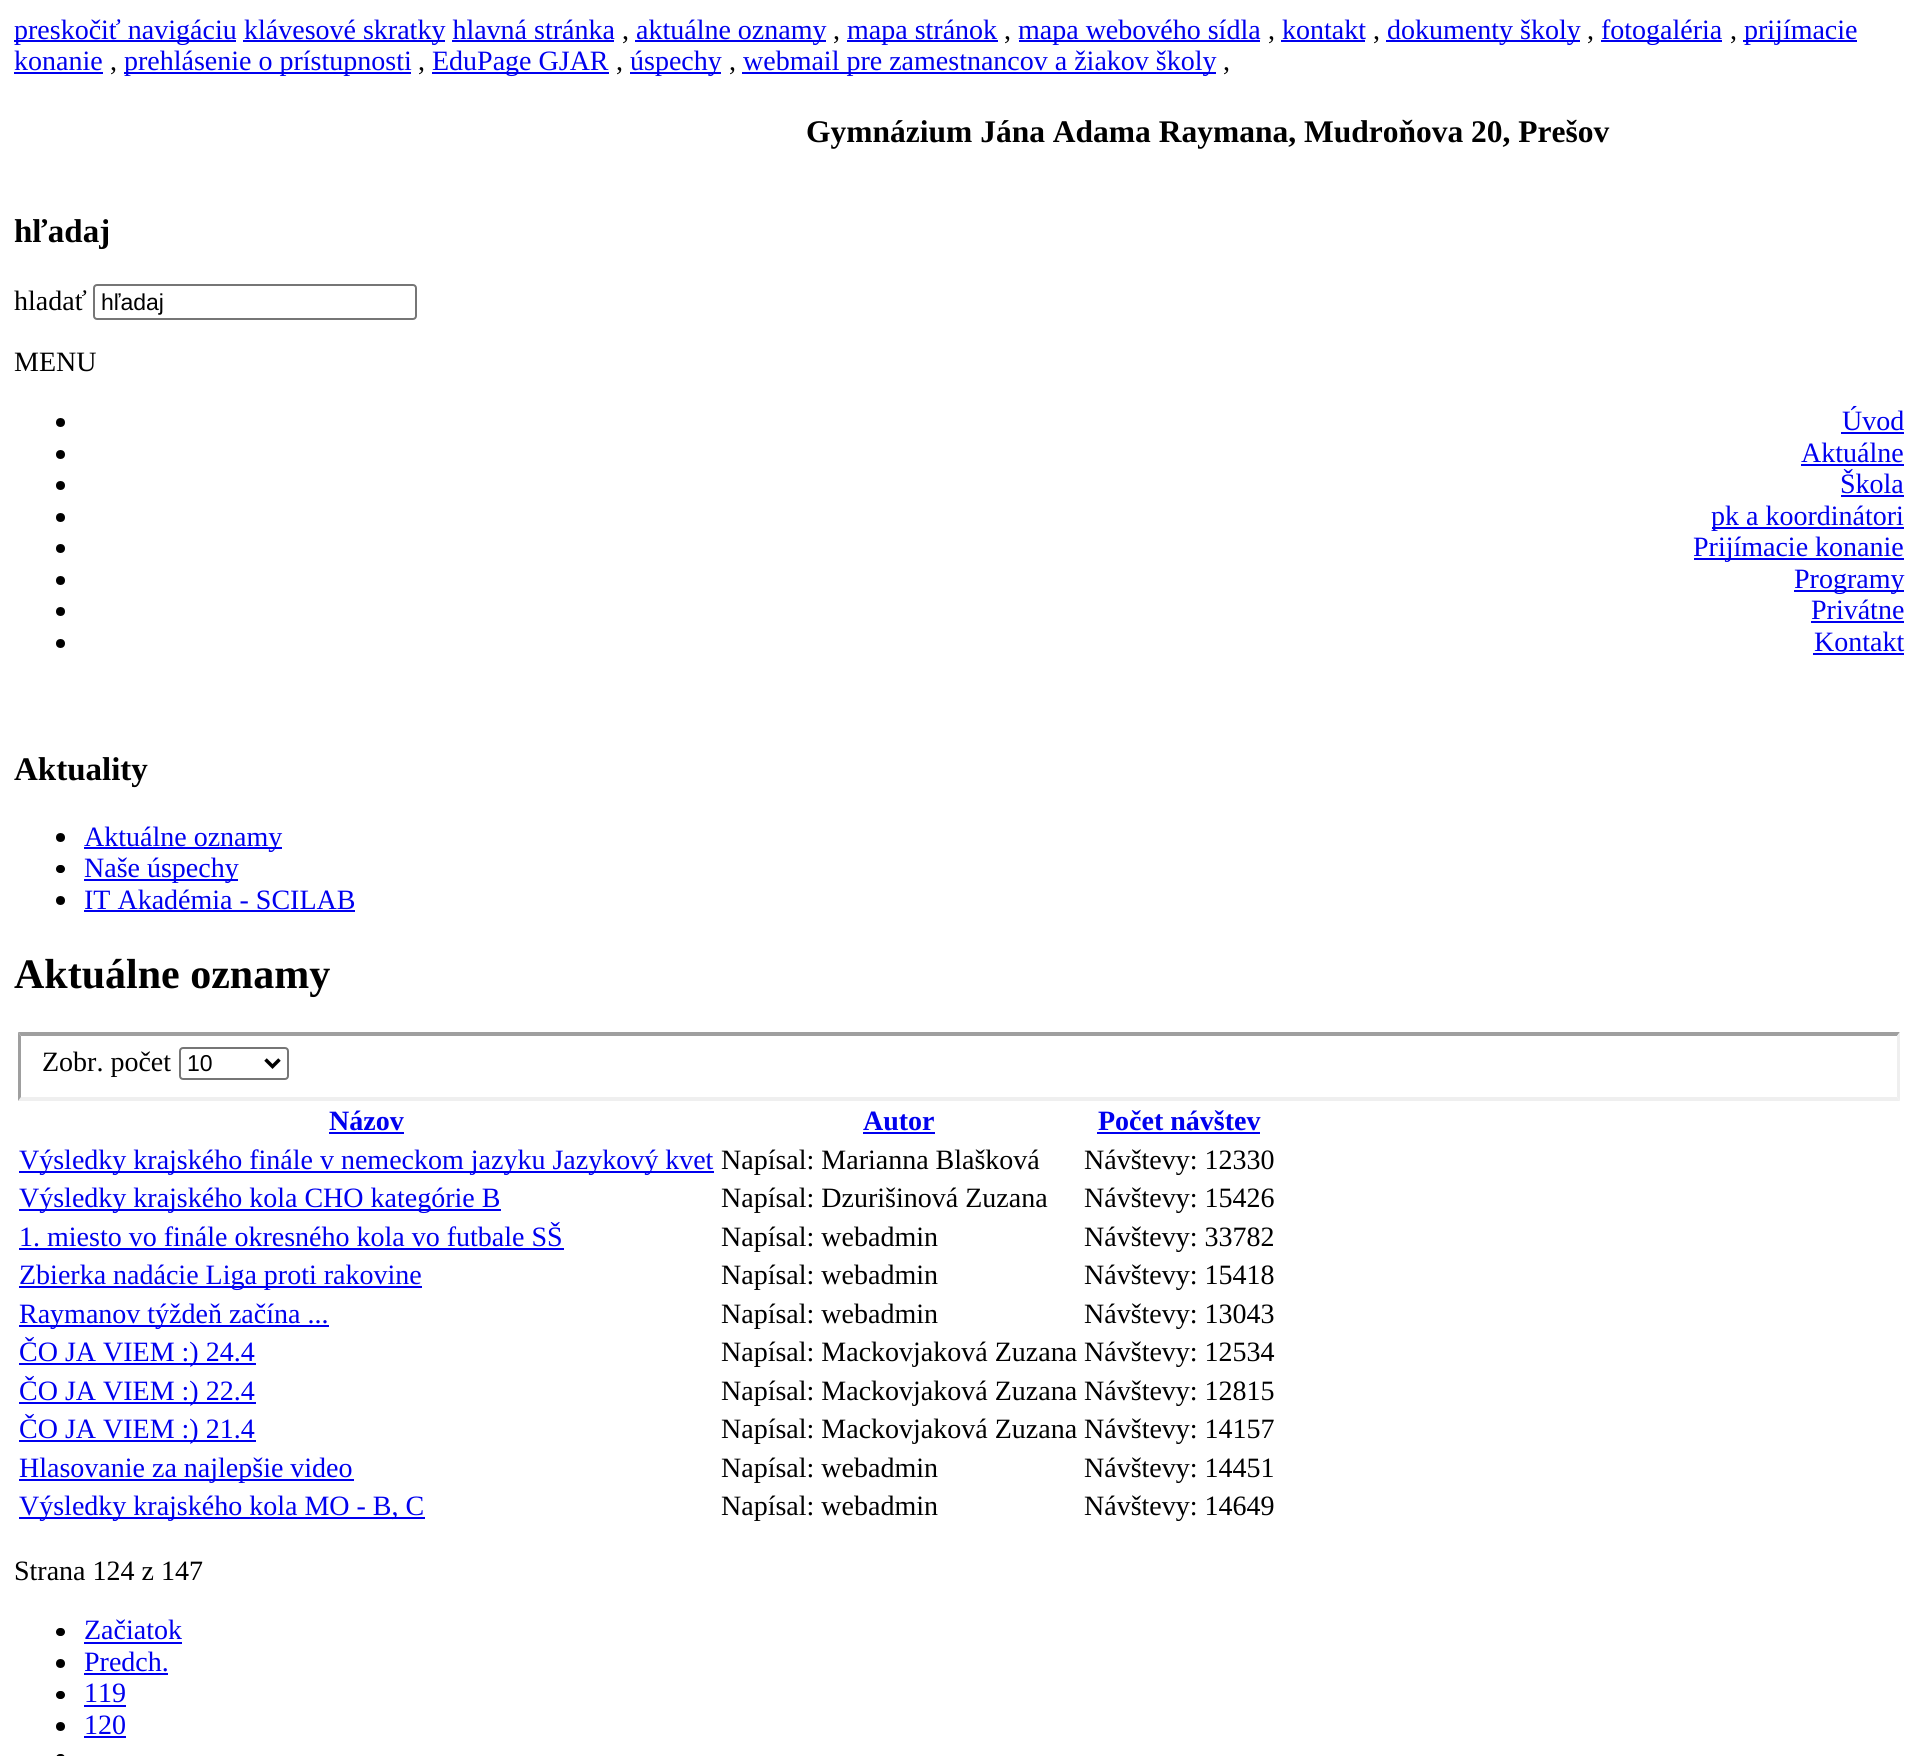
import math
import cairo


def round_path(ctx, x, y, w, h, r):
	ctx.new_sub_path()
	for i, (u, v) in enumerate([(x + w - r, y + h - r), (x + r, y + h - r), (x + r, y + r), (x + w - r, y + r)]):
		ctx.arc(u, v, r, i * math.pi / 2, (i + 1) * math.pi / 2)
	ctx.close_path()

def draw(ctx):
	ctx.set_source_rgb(1, 1, 1)
	ctx.paint()
	ctx.set_source_rgb(0, 0, 0.933)
	ctx.rectangle(14, 40, 222, 2)
	ctx.fill()
	ctx.select_font_face('Liberation Serif')
	ctx.set_font_size(28)
	ctx.move_to(14, 39)
	ctx.show_text('preskočiť navigáciu')
	ctx.rectangle(243, 40, 202, 2)
	ctx.fill()
	ctx.move_to(244, 39)
	ctx.show_text('klávesové skratky hlavná stránka')
	ctx.set_source_rgb(0, 0, 0)
	ctx.move_to(622, 39)
	ctx.show_text(',')
	ctx.set_source_rgb(0, 0, 0.933)
	ctx.rectangle(635, 40, 191, 2)
	ctx.fill()
	ctx.move_to(636, 39)
	ctx.show_text('aktuálne oznamy')
	ctx.set_source_rgb(0, 0, 0)
	ctx.move_to(833, 39)
	ctx.show_text(',')
	ctx.set_source_rgb(0, 0, 0.933)
	ctx.rectangle(847, 40, 151, 2)
	ctx.fill()
	ctx.move_to(847, 39)
	ctx.show_text('mapa stránok')
	ctx.set_source_rgb(0, 0, 0)
	ctx.move_to(1004, 39)
	ctx.show_text(',')
	ctx.set_source_rgb(0, 0, 0.933)
	ctx.rectangle(1019, 40, 241, 2)
	ctx.fill()
	ctx.move_to(1018, 39)
	ctx.show_text('mapa webového sídla')
	ctx.set_source_rgb(0, 0, 0)
	ctx.move_to(1268, 39)
	ctx.show_text(',')
	ctx.set_source_rgb(0, 0, 0.933)
	ctx.move_to(1282, 39)
	ctx.show_text('kontakt')
	ctx.rectangle(1281, 40, 84, 2)
	ctx.fill()
	ctx.set_source_rgb(0, 0, 0)
	ctx.move_to(1373, 39)
	ctx.show_text(',')
	ctx.set_source_rgb(0, 0, 0.933)
	ctx.rectangle(1386, 40, 194, 2)
	ctx.fill()
	ctx.move_to(1387, 39)
	ctx.show_text('dokumenty školy')
	ctx.set_source_rgb(0, 0, 0)
	ctx.move_to(1587, 39)
	ctx.show_text(',')
	ctx.set_source_rgb(0, 0, 0.933)
	ctx.rectangle(1601, 40, 121, 2)
	ctx.fill()
	ctx.move_to(1601, 39)
	ctx.show_text('fotogaléria')
	ctx.set_source_rgb(0, 0, 0)
	ctx.move_to(1730, 39)
	ctx.show_text(',')
	ctx.set_source_rgb(0, 0, 0.933)
	ctx.rectangle(1743, 40, 114, 2)
	ctx.fill()
	ctx.move_to(1744, 39)
	ctx.show_text('prijímacie')
	ctx.rectangle(452, 40, 162, 2)
	ctx.fill()
	ctx.move_to(14, 70)
	ctx.show_text('konanie')
	ctx.rectangle(14, 72, 89, 2)
	ctx.fill()
	ctx.set_source_rgb(0, 0, 0)
	ctx.move_to(110, 70)
	ctx.show_text(',')
	ctx.set_source_rgb(0, 0, 0.933)
	ctx.rectangle(124, 72, 287, 2)
	ctx.fill()
	ctx.move_to(124, 70)
	ctx.show_text('prehlásenie o prístupnosti')
	ctx.set_source_rgb(0, 0, 0)
	ctx.move_to(418, 70)
	ctx.show_text(',')
	ctx.set_source_rgb(0, 0, 0.933)
	ctx.rectangle(432, 72, 177, 2)
	ctx.fill()
	ctx.move_to(432, 70)
	ctx.show_text('EduPage GJAR')
	ctx.set_source_rgb(0, 0, 0)
	ctx.move_to(616, 70)
	ctx.show_text(',')
	ctx.set_source_rgb(0, 0, 0.933)
	ctx.rectangle(630, 72, 91, 2)
	ctx.fill()
	ctx.move_to(630, 70)
	ctx.show_text('úspechy')
	ctx.set_source_rgb(0, 0, 0)
	ctx.move_to(729, 70)
	ctx.show_text(',')
	ctx.set_source_rgb(0, 0, 0.933)
	ctx.rectangle(742, 72, 474, 2)
	ctx.fill()
	ctx.move_to(743, 70)
	ctx.show_text('webmail pre zamestnancov a žiakov školy')
	ctx.set_source_rgb(0, 0, 0)
	ctx.move_to(1223, 70)
	ctx.show_text(',')
	ctx.select_font_face('Liberation Serif', cairo.FONT_SLANT_NORMAL, cairo.FONT_WEIGHT_BOLD)
	ctx.set_font_size(31.5)
	ctx.move_to(806, 142)
	ctx.show_text('Gymnázium Jána Adama Raymana, Mudroňova 20, Prešov')
	ctx.set_font_size(33)
	ctx.move_to(14, 242)
	ctx.show_text('hľadaj')
	ctx.select_font_face('Liberation Serif')
	ctx.set_font_size(28)
	ctx.move_to(14, 310)
	ctx.show_text('hladať')
	round_path(ctx, 94, 285, 322, 34, 3)
	ctx.set_source_rgb(0.463, 0.463, 0.463)
	ctx.stroke()
	ctx.select_font_face('Liberation Sans')
	ctx.set_font_size(23)
	ctx.set_source_rgb(0, 0, 0)
	ctx.move_to(101, 310)
	ctx.show_text('hľadaj')
	ctx.select_font_face('Liberation Serif')
	ctx.set_font_size(28)
	ctx.move_to(14, 371)
	ctx.show_text('MENU')
	ctx.new_path()
	ctx.arc(60.5, 422.5, 4.5, 0, 2 * math.pi)
	ctx.fill()
	ctx.set_source_rgb(0, 0, 0.933)
	ctx.move_to(1842, 430)
	ctx.show_text('Úvod')
	ctx.rectangle(1841, 432, 63, 2)
	ctx.fill()
	ctx.set_source_rgb(0, 0, 0)
	ctx.arc(60.5, 454.5, 4.5, 0, 2 * math.pi)
	ctx.fill()
	ctx.set_source_rgb(0, 0, 0.933)
	ctx.move_to(1801, 462)
	ctx.show_text('Aktuálne')
	ctx.rectangle(1801, 464, 103, 2)
	ctx.fill()
	ctx.set_source_rgb(0, 0, 0)
	ctx.arc(60.5, 485.5, 4.5, 0, 2 * math.pi)
	ctx.fill()
	ctx.set_source_rgb(0, 0, 0.933)
	ctx.move_to(1840, 493)
	ctx.show_text('Škola')
	ctx.rectangle(1841, 495, 63, 2)
	ctx.fill()
	ctx.set_source_rgb(0, 0, 0)
	ctx.arc(60.5, 517.5, 4.5, 0, 2 * math.pi)
	ctx.fill()
	ctx.set_source_rgb(0, 0, 0.933)
	ctx.rectangle(1712, 527, 192, 2)
	ctx.fill()
	ctx.move_to(1711, 525)
	ctx.show_text('pk a koordinátori')
	ctx.set_source_rgb(0, 0, 0)
	ctx.new_path()
	ctx.arc(60.5, 548.5, 4.5, 0, 2 * math.pi)
	ctx.fill()
	ctx.set_source_rgb(0, 0, 0.933)
	ctx.rectangle(1694, 558, 210, 2)
	ctx.fill()
	ctx.move_to(1693, 556)
	ctx.show_text('Prijímacie konanie')
	ctx.set_source_rgb(0, 0, 0)
	ctx.new_path()
	ctx.arc(60.5, 580.5, 4.5, 0, 2 * math.pi)
	ctx.fill()
	ctx.set_source_rgb(0, 0, 0.933)
	ctx.rectangle(1794, 590, 110, 2)
	ctx.fill()
	ctx.move_to(1794, 588)
	ctx.show_text('Programy')
	ctx.set_source_rgb(0, 0, 0)
	ctx.new_path()
	ctx.arc(60.5, 611.5, 4.5, 0, 2 * math.pi)
	ctx.fill()
	ctx.set_source_rgb(0, 0, 0.933)
	ctx.move_to(1811, 619)
	ctx.show_text('Privátne')
	ctx.rectangle(1811, 621, 93, 2)
	ctx.fill()
	ctx.set_source_rgb(0, 0, 0)
	ctx.arc(60.5, 643.5, 4.5, 0, 2 * math.pi)
	ctx.fill()
	ctx.set_source_rgb(0, 0, 0.933)
	ctx.move_to(1814, 651)
	ctx.show_text('Kontakt')
	ctx.rectangle(1813, 653, 91, 2)
	ctx.fill()
	ctx.select_font_face('Liberation Serif', cairo.FONT_SLANT_NORMAL, cairo.FONT_WEIGHT_BOLD)
	ctx.set_font_size(33)
	ctx.set_source_rgb(0, 0, 0)
	ctx.move_to(14, 780)
	ctx.show_text('Aktuality')
	ctx.new_path()
	ctx.arc(60.5, 837.5, 4.5, 0, 2 * math.pi)
	ctx.fill()
	ctx.set_source_rgb(0, 0, 0.933)
	ctx.rectangle(84, 847, 198, 2)
	ctx.fill()
	ctx.select_font_face('Liberation Serif')
	ctx.set_font_size(28)
	ctx.move_to(84, 846)
	ctx.show_text('Aktuálne oznamy')
	ctx.set_source_rgb(0, 0, 0)
	round_path(ctx, 56, 865, 9, 8, 4)
	ctx.fill()
	ctx.set_source_rgb(0, 0, 0.933)
	ctx.rectangle(84, 879, 154, 2)
	ctx.fill()
	ctx.move_to(84, 877)
	ctx.show_text('Naše úspechy')
	ctx.set_source_rgb(0, 0, 0)
	ctx.new_path()
	ctx.arc(60.5, 900.5, 4.5, 0, 2 * math.pi)
	ctx.fill()
	ctx.set_source_rgb(0, 0, 0.933)
	ctx.move_to(84, 909)
	ctx.show_text('IT Akadémia - SCILAB')
	ctx.rectangle(84, 910, 271, 2)
	ctx.fill()
	ctx.select_font_face('Liberation Serif', cairo.FONT_SLANT_NORMAL, cairo.FONT_WEIGHT_BOLD)
	ctx.set_font_size(42)
	ctx.set_source_rgb(0, 0, 0)
	ctx.move_to(14, 988)
	ctx.show_text('Aktuálne oznamy')
	ctx.set_source_rgb(0.624, 0.624, 0.624)
	ctx.new_path()
	ctx.move_to(18, 1032)
	ctx.line_to(1900, 1032)
	ctx.line_to(1897, 1036)
	ctx.line_to(21, 1036)
	ctx.close_path()
	ctx.fill()
	ctx.set_source_rgb(0.937, 0.937, 0.937)
	ctx.new_path()
	ctx.move_to(1900, 1032)
	ctx.line_to(1900, 1101)
	ctx.line_to(1897, 1097)
	ctx.line_to(1897, 1036)
	ctx.close_path()
	ctx.fill()
	ctx.new_path()
	ctx.move_to(1900, 1101)
	ctx.line_to(18, 1101)
	ctx.line_to(21, 1097)
	ctx.line_to(1897, 1097)
	ctx.close_path()
	ctx.fill()
	ctx.set_source_rgb(0.624, 0.624, 0.624)
	ctx.new_path()
	ctx.move_to(18, 1101)
	ctx.line_to(18, 1032)
	ctx.line_to(21, 1036)
	ctx.line_to(21, 1097)
	ctx.close_path()
	ctx.fill()
	ctx.select_font_face('Liberation Serif')
	ctx.set_font_size(28)
	ctx.set_source_rgb(0, 0, 0)
	ctx.move_to(42, 1071)
	ctx.show_text('Zobr. počet')
	round_path(ctx, 180, 1048, 108, 31, 3)
	ctx.set_source_rgb(0.463, 0.463, 0.463)
	ctx.stroke()
	ctx.new_path()
	ctx.move_to(265.5, 1059.5)
	ctx.line_to(272.5, 1066.5)
	ctx.line_to(279.5, 1059.5)
	ctx.set_source_rgb(0, 0, 0)
	ctx.set_line_width(3.5)
	ctx.stroke()
	ctx.select_font_face('Liberation Sans')
	ctx.set_font_size(23)
	ctx.move_to(187, 1071)
	ctx.show_text('10')
	ctx.select_font_face('Liberation Serif', cairo.FONT_SLANT_NORMAL, cairo.FONT_WEIGHT_BOLD)
	ctx.set_font_size(28)
	ctx.set_source_rgb(0, 0, 0.933)
	ctx.move_to(329, 1130)
	ctx.show_text('Názov')
	ctx.rectangle(329, 1132, 75, 2)
	ctx.fill()
	ctx.move_to(863, 1130)
	ctx.show_text('Autor')
	ctx.rectangle(863, 1132, 72, 2)
	ctx.fill()
	ctx.move_to(1098, 1130)
	ctx.show_text('Počet návštev')
	ctx.rectangle(1097, 1132, 163, 2)
	ctx.fill()
	ctx.rectangle(19, 1171, 695, 2)
	ctx.fill()
	ctx.select_font_face('Liberation Serif')
	ctx.move_to(19, 1169)
	ctx.show_text('Výsledky krajského finále v nemeckom jazyku Jazykový kvet')
	ctx.set_source_rgb(0, 0, 0)
	ctx.move_to(721, 1169)
	ctx.show_text('Napísal: Marianna Blašková')
	ctx.move_to(1084, 1169)
	ctx.show_text('Návštevy: 12330')
	ctx.set_source_rgb(0, 0, 0.933)
	ctx.rectangle(19, 1209, 482, 2)
	ctx.fill()
	ctx.move_to(19, 1207)
	ctx.show_text('Výsledky krajského kola CHO kategórie B')
	ctx.set_source_rgb(0, 0, 0)
	ctx.move_to(721, 1207)
	ctx.show_text('Napísal: Dzurišinová Zuzana')
	ctx.move_to(1084, 1207)
	ctx.show_text('Návštevy: 15426')
	ctx.set_source_rgb(0, 0, 0.933)
	ctx.move_to(19, 1246)
	ctx.show_text('1. miesto vo finále okresného kola vo futbale SŠ')
	ctx.rectangle(19, 1248, 545, 2)
	ctx.fill()
	ctx.set_source_rgb(0, 0, 0)
	ctx.move_to(721, 1246)
	ctx.show_text('Napísal: webadmin')
	ctx.move_to(1084, 1246)
	ctx.show_text('Návštevy: 33782')
	ctx.set_source_rgb(0, 0, 0.933)
	ctx.rectangle(19, 1286, 403, 2)
	ctx.fill()
	ctx.move_to(19, 1284)
	ctx.show_text('Zbierka nadácie Liga proti rakovine')
	ctx.set_source_rgb(0, 0, 0)
	ctx.move_to(721, 1284)
	ctx.show_text('Napísal: webadmin')
	ctx.move_to(1084, 1284)
	ctx.show_text('Návštevy: 15418')
	ctx.set_source_rgb(0, 0, 0.933)
	ctx.rectangle(19, 1325, 310, 2)
	ctx.fill()
	ctx.move_to(19, 1323)
	ctx.show_text('Raymanov týždeň začína ...')
	ctx.set_source_rgb(0, 0, 0)
	ctx.move_to(721, 1323)
	ctx.show_text('Napísal: webadmin')
	ctx.move_to(1084, 1323)
	ctx.show_text('Návštevy: 13043')
	ctx.set_source_rgb(0, 0, 0.933)
	ctx.rectangle(19, 1363, 237, 2)
	ctx.fill()
	ctx.move_to(19, 1361)
	ctx.show_text('ČO JA VIEM :) 24.4')
	ctx.set_source_rgb(0, 0, 0)
	ctx.move_to(721, 1361)
	ctx.show_text('Napísal: Mackovjaková Zuzana Návštevy: 12534')
	ctx.set_source_rgb(0, 0, 0.933)
	ctx.rectangle(19, 1402, 237, 2)
	ctx.fill()
	ctx.move_to(19, 1400)
	ctx.show_text('ČO JA VIEM :) 22.4')
	ctx.set_source_rgb(0, 0, 0)
	ctx.move_to(721, 1400)
	ctx.show_text('Napísal: Mackovjaková Zuzana Návštevy: 12815')
	ctx.set_source_rgb(0, 0, 0.933)
	ctx.rectangle(19, 1440, 237, 2)
	ctx.fill()
	ctx.move_to(19, 1438)
	ctx.show_text('ČO JA VIEM :) 21.4')
	ctx.set_source_rgb(0, 0, 0)
	ctx.move_to(721, 1438)
	ctx.show_text('Napísal: Mackovjaková Zuzana Návštevy: 14157')
	ctx.set_source_rgb(0, 0, 0.933)
	ctx.rectangle(19, 1479, 335, 2)
	ctx.fill()
	ctx.move_to(19, 1477)
	ctx.show_text('Hlasovanie za najlepšie video')
	ctx.set_source_rgb(0, 0, 0)
	ctx.move_to(721, 1477)
	ctx.show_text('Napísal: webadmin')
	ctx.move_to(1084, 1477)
	ctx.show_text('Návštevy: 14451')
	ctx.set_source_rgb(0, 0, 0.933)
	ctx.rectangle(19, 1517, 406, 2)
	ctx.fill()
	ctx.move_to(19, 1515)
	ctx.show_text('Výsledky krajského kola MO - B, C')
	ctx.set_source_rgb(0, 0, 0)
	for x, y, s in [
		(721, 1515, 'Napísal: webadmin'),
		(1084, 1515, 'Návštevy: 14649'),
		(14, 1580, 'Strana 124 z 147'),
	]:
		ctx.move_to(x, y)
		ctx.show_text(s)
	round_path(ctx, 56, 1628, 9, 8, 4)
	ctx.fill()
	ctx.set_source_rgb(0, 0, 0.933)
	ctx.move_to(84, 1639)
	ctx.show_text('Začiatok')
	ctx.rectangle(84, 1642, 98, 2)
	ctx.fill()
	ctx.set_source_rgb(0, 0, 0)
	ctx.arc(60.5, 1663.5, 4.5, 0, 2 * math.pi)
	ctx.fill()
	ctx.set_source_rgb(0, 0, 0.933)
	ctx.move_to(84, 1671)
	ctx.show_text('Predch.')
	ctx.rectangle(84, 1673, 84, 2)
	ctx.fill()
	ctx.set_source_rgb(0, 0, 0)
	round_path(ctx, 56, 1691, 9, 8, 4)
	ctx.fill()
	ctx.set_source_rgb(0, 0, 0.933)
	ctx.move_to(84, 1702)
	ctx.show_text('119')
	ctx.rectangle(84, 1705, 42, 2)
	ctx.fill()
	ctx.set_source_rgb(0, 0, 0)
	ctx.arc(60.5, 1726.5, 4.5, 0, 2 * math.pi)
	ctx.fill()
	ctx.set_source_rgb(0, 0, 0.933)
	ctx.move_to(84, 1734)
	ctx.show_text('120')
	ctx.rectangle(84, 1736, 42, 2)
	ctx.fill()
	ctx.set_source_rgb(0, 0, 0)
	round_path(ctx, 56, 1754, 9, 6, 4)
	ctx.fill()


surface = cairo.ImageSurface(cairo.FORMAT_RGB24, 1918, 1756)
ctx = cairo.Context(surface)
options = cairo.FontOptions()
options.set_hint_metrics(cairo.HINT_METRICS_OFF)
options.set_hint_style(cairo.HINT_STYLE_NONE)
ctx.set_font_options(options)
ctx.set_miter_limit(4)
draw(ctx)
surface.write_to_png('image.png')
